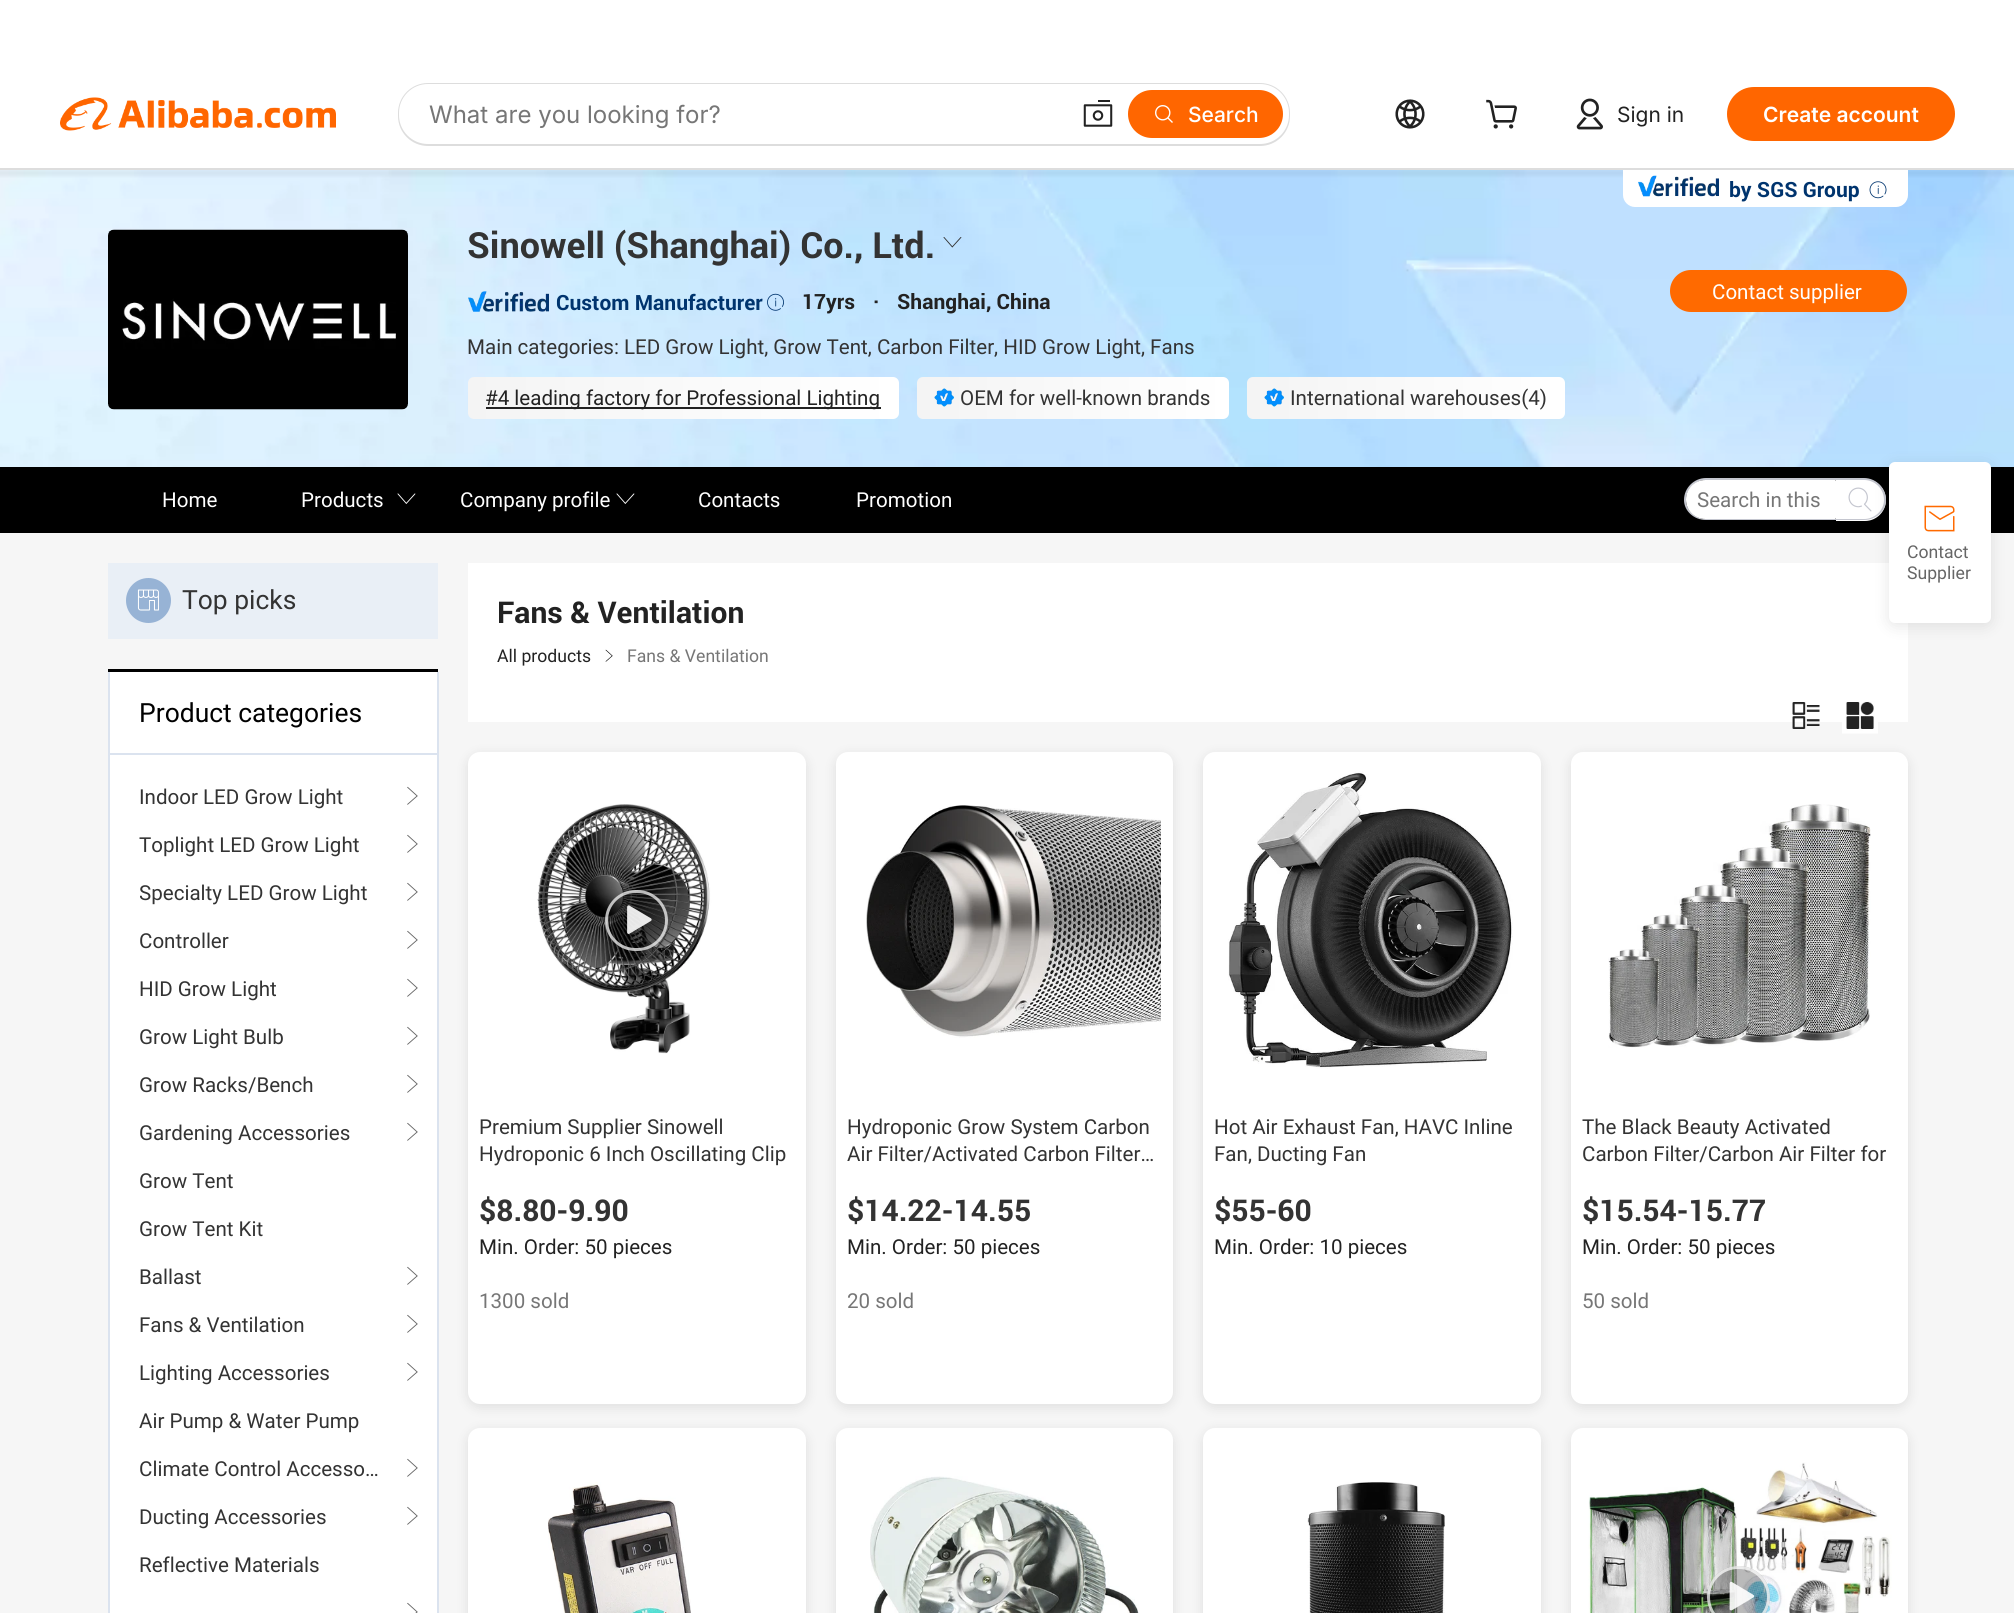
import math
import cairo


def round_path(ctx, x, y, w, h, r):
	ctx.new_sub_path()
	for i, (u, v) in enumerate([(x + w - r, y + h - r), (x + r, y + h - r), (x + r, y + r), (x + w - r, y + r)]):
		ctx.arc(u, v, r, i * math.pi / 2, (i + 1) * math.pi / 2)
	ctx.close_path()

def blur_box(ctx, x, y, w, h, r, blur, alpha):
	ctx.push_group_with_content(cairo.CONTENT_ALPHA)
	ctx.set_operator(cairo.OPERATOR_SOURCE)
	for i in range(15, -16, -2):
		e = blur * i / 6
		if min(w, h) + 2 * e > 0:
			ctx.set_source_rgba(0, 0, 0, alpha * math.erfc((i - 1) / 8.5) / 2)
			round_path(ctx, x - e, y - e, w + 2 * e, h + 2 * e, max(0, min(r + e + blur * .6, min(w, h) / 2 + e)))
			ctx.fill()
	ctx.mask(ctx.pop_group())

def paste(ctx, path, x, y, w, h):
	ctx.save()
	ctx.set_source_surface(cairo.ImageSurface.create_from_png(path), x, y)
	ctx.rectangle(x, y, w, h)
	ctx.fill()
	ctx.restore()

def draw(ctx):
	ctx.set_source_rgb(1, 1, 1)
	ctx.paint()
	paste(ctx, 'media/7.png', 0, 170, 2014, 297)
	ctx.set_source_rgb(0, 0, 0)
	blur_box(ctx, -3, 170, 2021, 6, 0, 1.5, 0.05)
	ctx.set_source_rgb(0.867, 0.867, 0.867)
	ctx.rectangle(0, 168, 2014, 2)
	ctx.fill()
	paste(ctx, 'media/1.png', 60, 97, 276, 34)
	round_path(ctx, 398, 83, 892, 63, 30)
	ctx.fill()
	ctx.set_source_rgb(1, 1, 1)
	round_path(ctx, 399, 84, 890, 60, 29)
	ctx.fill()
	ctx.select_font_face('Inter')
	ctx.set_font_size(24)
	ctx.set_source_rgb(0.463, 0.463, 0.463)
	ctx.move_to(429, 123)
	ctx.show_text('What are you looking for?')
	paste(ctx, 'media/2.png', 1083, 100, 30, 27)
	ctx.set_source_rgb(1, 0.4, 0)
	round_path(ctx, 1128, 90, 155, 48, 24)
	ctx.fill()
	paste(ctx, 'media/3.png', 1155, 105, 18, 18)
	ctx.select_font_face('Inter Medium')
	ctx.set_font_size(21)
	ctx.set_source_rgb(1, 1, 1)
	ctx.move_to(1188, 122)
	ctx.show_text('Search')
	paste(ctx, 'media/4.png', 1395, 99, 30, 30)
	paste(ctx, 'media/5.png', 1486, 99, 31, 30)
	paste(ctx, 'media/6.png', 1576, 98, 27, 32)
	ctx.select_font_face('Inter')
	ctx.set_source_rgb(0.133, 0.133, 0.133)
	ctx.move_to(1617, 122)
	ctx.show_text('Sign in')
	ctx.set_source_rgb(1, 0.4, 0)
	round_path(ctx, 1727, 87, 228, 54, 27)
	ctx.fill()
	ctx.select_font_face('Inter SemiBold')
	ctx.set_source_rgb(1, 1, 1)
	ctx.move_to(1763, 122)
	ctx.show_text('Create account')
	ctx.new_path()
	ctx.move_to(1623, 170)
	ctx.line_to(1908, 170)
	ctx.line_to(1908, 195)
	ctx.curve_to(1908, 201.5, 1902.5, 207, 1896, 207)
	ctx.line_to(1635, 207)
	ctx.curve_to(1628.5, 207, 1623, 201.5, 1623, 195)
	ctx.close_path()
	ctx.fill()
	paste(ctx, 'media/8.png', 1638, 175, 81, 22)
	ctx.select_font_face('Roboto', cairo.FONT_SLANT_NORMAL, cairo.FONT_WEIGHT_BOLD)
	ctx.set_source_rgb(0, 0.204, 0.431)
	ctx.move_to(1729, 197)
	ctx.show_text('by SGS Group')
	paste(ctx, 'media/9.png', 1869, 181, 18, 18)
	paste(ctx, 'media/10.png', 108, 229, 300, 181)
	ctx.set_font_size(36)
	ctx.set_source_rgb(0.2, 0.2, 0.2)
	ctx.move_to(467, 258)
	ctx.show_text('Sinowell (Shanghai) Co., Ltd.')
	paste(ctx, 'media/11.png', 943, 237, 19, 11)
	paste(ctx, 'media/12.png', 468, 291, 81, 21)
	ctx.set_font_size(21)
	ctx.set_source_rgb(0, 0.204, 0.431)
	ctx.move_to(556, 310)
	ctx.show_text('Custom Manufacturer')
	paste(ctx, 'media/13.png', 767, 293, 17, 18)
	ctx.set_source_rgb(0.133, 0.133, 0.133)
	for x, y, s in [
		(802, 309, '17yrs'),
		(873, 309, '·'),
		(897, 309, 'Shanghai, China'),
	]:
		ctx.move_to(x, y)
		ctx.show_text(s)
	ctx.select_font_face('Roboto')
	ctx.set_source_rgb(0.2, 0.2, 0.2)
	ctx.move_to(467, 354)
	ctx.show_text('Main categories: LED Grow Light, Grow Tent, Carbon Filter, HID Grow Light, Fans')
	gradient = cairo.LinearGradient(899, 398, 468, 398)
	gradient.add_color_stop_rgba(0, 1, 1, 1, 1)
	gradient.add_color_stop_rgba(1, 0.957, 0.957, 0.957, 1)
	ctx.set_source(gradient)
	round_path(ctx, 468, 377, 431, 42, 6)
	ctx.fill()
	ctx.set_source_rgb(0.133, 0.133, 0.133)
	ctx.rectangle(486, 407, 395, 2)
	ctx.fill()
	ctx.move_to(485, 405)
	ctx.show_text('#4 leading factory for Professional Lighting')
	gradient = cairo.LinearGradient(1229, 398, 917, 398)
	gradient.add_color_stop_rgba(0, 1, 1, 1, 1)
	gradient.add_color_stop_rgba(1, 0.957, 0.957, 0.957, 1)
	ctx.set_source(gradient)
	round_path(ctx, 917, 377, 312, 42, 6)
	ctx.fill()
	paste(ctx, 'media/14.png', 934, 388, 20, 19)
	ctx.set_source_rgb(0.2, 0.2, 0.2)
	ctx.move_to(960, 405)
	ctx.show_text('OEM for well-known brands')
	gradient = cairo.LinearGradient(1565, 398, 1247, 398)
	gradient.add_color_stop_rgba(0, 1, 1, 1, 1)
	gradient.add_color_stop_rgba(1, 0.957, 0.957, 0.957, 1)
	ctx.set_source(gradient)
	round_path(ctx, 1247, 377, 318, 42, 6)
	ctx.fill()
	paste(ctx, 'media/14.png', 1264, 388, 20, 19)
	ctx.set_source_rgb(0.2, 0.2, 0.2)
	ctx.move_to(1290, 405)
	ctx.show_text('International warehouses(4)')
	ctx.set_source_rgb(1, 0.416, 0)
	round_path(ctx, 1670, 270, 237, 42, 21)
	ctx.fill()
	ctx.set_source_rgb(1, 1, 1)
	ctx.move_to(1712, 299)
	ctx.show_text('Contact supplier')
	ctx.set_source_rgb(0, 0, 0)
	ctx.rectangle(0, 467, 2014, 66)
	ctx.fill()
	ctx.set_source_rgb(1, 1, 1)
	ctx.move_to(162, 507)
	ctx.show_text('Home')
	ctx.move_to(301, 507)
	ctx.show_text('Products')
	paste(ctx, 'media/15.png', 397, 493, 19, 11)
	ctx.move_to(460, 507)
	ctx.show_text('Company profile')
	paste(ctx, 'media/15.png', 616, 493, 19, 11)
	ctx.move_to(698, 507)
	ctx.show_text('Contacts')
	ctx.move_to(856, 507)
	ctx.show_text('Promotion')
	ctx.set_source_rgb(0.769, 0.776, 0.812)
	ctx.set_fill_rule(cairo.FILL_RULE_EVEN_ODD)
	ctx.new_path()
	ctx.move_to(1706, 478)
	ctx.line_to(1836, 478)
	ctx.line_to(1836, 520)
	ctx.line_to(1706, 520)
	ctx.curve_to(1694, 520, 1684, 511, 1684, 500)
	ctx.curve_to(1684, 488, 1694, 478, 1706, 478)
	ctx.close_path()
	ctx.move_to(1706, 480)
	ctx.line_to(1836, 480)
	ctx.line_to(1836, 519)
	ctx.line_to(1706, 519)
	ctx.curve_to(1695, 519, 1686, 510, 1686, 500)
	ctx.curve_to(1686, 489, 1695, 480, 1706, 480)
	ctx.close_path()
	ctx.fill()
	ctx.set_source_rgb(1, 1, 1)
	ctx.new_path()
	ctx.move_to(1705.5, 480)
	ctx.line_to(1835, 480)
	ctx.curve_to(1835.5, 480, 1836, 480.5, 1836, 481)
	ctx.line_to(1836, 518)
	ctx.curve_to(1836, 518.5, 1835.5, 519, 1835, 519)
	ctx.line_to(1705.5, 519)
	ctx.curve_to(1694.5, 519, 1686, 510.5, 1686, 499.5)
	ctx.curve_to(1686, 488.5, 1694.5, 480, 1705.5, 480)
	ctx.close_path()
	ctx.fill()
	ctx.set_source_rgb(0.463, 0.463, 0.463)
	ctx.move_to(1697, 507)
	ctx.show_text('Search in this')
	ctx.set_source_rgb(1, 1, 1)
	ctx.new_path()
	ctx.move_to(1836, 479)
	ctx.line_to(1865, 479)
	ctx.curve_to(1876.5, 479, 1886, 488.5, 1886, 500)
	ctx.curve_to(1886, 511.5, 1876.5, 521, 1865, 521)
	ctx.line_to(1836, 521)
	ctx.close_path()
	ctx.fill()
	ctx.set_source_rgb(0.769, 0.776, 0.812)
	ctx.new_path()
	ctx.move_to(1836, 478)
	ctx.line_to(1864, 478)
	ctx.curve_to(1876, 478, 1886, 488, 1886, 500)
	ctx.curve_to(1886, 511, 1876, 520, 1864, 520)
	ctx.line_to(1836, 520)
	ctx.close_path()
	ctx.move_to(1836, 480)
	ctx.line_to(1864, 480)
	ctx.curve_to(1875, 480, 1884, 489, 1884, 500)
	ctx.curve_to(1884, 510, 1875, 519, 1864, 519)
	ctx.line_to(1836, 519)
	ctx.close_path()
	ctx.fill()
	paste(ctx, 'media/16.png', 1848, 487, 24, 25)
	ctx.set_source_rgb(0.961, 0.961, 0.961)
	ctx.rectangle(0, 533, 2014, 1080)
	ctx.fill()
	ctx.set_source_rgb(0.914, 0.937, 0.961)
	ctx.rectangle(108, 563, 330, 76)
	ctx.fill()
	ctx.set_source_rgb(0.592, 0.702, 0.835)
	ctx.arc(148.5, 600.5, 22.5, 0, 2 * math.pi)
	ctx.fill()
	paste(ctx, 'media/17.png', 137, 589, 22, 22)
	ctx.set_font_size(27)
	ctx.set_source_rgb(0.2, 0.2, 0.2)
	ctx.move_to(182, 609)
	ctx.show_text('Top picks')
	ctx.set_source_rgb(1, 1, 1)
	ctx.rectangle(110, 672, 327, 941)
	ctx.fill()
	ctx.set_source_rgb(0, 0, 0)
	ctx.rectangle(108, 669, 330, 3)
	ctx.fill()
	ctx.set_source_rgb(0.859, 0.89, 0.937)
	ctx.rectangle(437, 672, 2, 941)
	ctx.rectangle(108, 672, 2, 941)
	ctx.rectangle(110, 753, 327, 2)
	ctx.fill()
	ctx.set_source_rgb(0, 0, 0)
	ctx.move_to(139, 722)
	ctx.show_text('Product categories')
	ctx.set_font_size(21)
	ctx.set_source_rgb(0.2, 0.2, 0.2)
	ctx.move_to(139, 804)
	ctx.show_text('Indoor LED Grow Light')
	paste(ctx, 'media/18.png', 407, 786, 11, 19)
	ctx.move_to(139, 852)
	ctx.show_text('Toplight LED Grow Light')
	paste(ctx, 'media/18.png', 407, 834, 11, 19)
	ctx.save()
	ctx.set_fill_rule(cairo.FILL_RULE_WINDING)
	ctx.rectangle(140, 869, 267, 48)
	ctx.clip()
	ctx.move_to(139, 900)
	ctx.show_text('Specialty LED Grow Light')
	ctx.restore()
	paste(ctx, 'media/18.png', 407, 882, 11, 19)
	ctx.move_to(139, 948)
	ctx.show_text('Controller')
	paste(ctx, 'media/18.png', 407, 930, 11, 19)
	ctx.move_to(139, 996)
	ctx.show_text('HID Grow Light')
	paste(ctx, 'media/18.png', 407, 978, 11, 19)
	ctx.move_to(139, 1044)
	ctx.show_text('Grow Light Bulb')
	paste(ctx, 'media/18.png', 407, 1026, 11, 19)
	ctx.move_to(139, 1092)
	ctx.show_text('Grow Racks/Bench')
	paste(ctx, 'media/18.png', 407, 1074, 11, 19)
	ctx.move_to(139, 1140)
	ctx.show_text('Gardening Accessories')
	paste(ctx, 'media/18.png', 407, 1122, 11, 19)
	for x, y, s in [
		(139, 1188, 'Grow Tent'),
		(139, 1236, 'Grow Tent Kit'),
		(139, 1284, 'Ballast'),
	]:
		ctx.move_to(x, y)
		ctx.show_text(s)
	paste(ctx, 'media/18.png', 407, 1266, 11, 19)
	ctx.move_to(139, 1332)
	ctx.show_text('Fans & Ventilation')
	paste(ctx, 'media/18.png', 407, 1314, 11, 19)
	ctx.move_to(139, 1380)
	ctx.show_text('Lighting Accessories')
	paste(ctx, 'media/18.png', 407, 1362, 11, 19)
	ctx.move_to(139, 1428)
	ctx.show_text('Air Pump & Water Pump')
	ctx.move_to(139, 1476)
	ctx.show_text('Climate Control Accesso…')
	paste(ctx, 'media/18.png', 407, 1458, 11, 19)
	ctx.move_to(139, 1524)
	ctx.show_text('Ducting Accessories')
	paste(ctx, 'media/18.png', 407, 1506, 11, 19)
	ctx.move_to(139, 1572)
	ctx.show_text('Reflective Materials')
	paste(ctx, 'media/19.png', 407, 1602, 11, 11)
	ctx.set_source_rgb(1, 1, 1)
	ctx.rectangle(468, 563, 1440, 159)
	ctx.fill()
	ctx.select_font_face('Roboto', cairo.FONT_SLANT_NORMAL, cairo.FONT_WEIGHT_BOLD)
	ctx.set_font_size(30)
	ctx.set_source_rgb(0.133, 0.133, 0.133)
	ctx.move_to(497, 623)
	ctx.show_text('Fans & Ventilation')
	ctx.select_font_face('Roboto')
	ctx.set_font_size(18)
	ctx.move_to(497, 662)
	ctx.show_text('All products')
	paste(ctx, 'media/20.png', 605, 649, 8, 13)
	ctx.set_source_rgb(0.463, 0.463, 0.463)
	ctx.move_to(627, 662)
	ctx.show_text('Fans & Ventilation')
	paste(ctx, 'media/21.png', 1792, 702, 28, 27)
	paste(ctx, 'media/22.png', 1842, 701, 36, 33)
	ctx.set_source_rgb(0, 0, 0)
	blur_box(ctx, 468, 755, 338, 652, 12, 6, 0.1)
	ctx.set_source_rgb(1, 1, 1)
	round_path(ctx, 468, 752, 338, 652, 12)
	ctx.fill()
	paste(ctx, 'media/23.png', 480, 764, 313, 313)
	ctx.set_source_rgba(0, 0, 0, 0.27)
	round_path(ctx, 605, 890, 63, 61, 30.5)
	ctx.fill()
	round_path(ctx, 606.5, 891.5, 60, 58, 29)
	ctx.set_source_rgba(1, 1, 1, 0.72)
	ctx.set_line_width(3)
	ctx.stroke()
	paste(ctx, 'media/24.png', 627, 905, 25, 29)
	ctx.set_font_size(21)
	ctx.set_source_rgb(0.2, 0.2, 0.2)
	ctx.move_to(479, 1134)
	ctx.show_text('Premium Supplier Sinowell')
	ctx.move_to(479, 1161)
	ctx.show_text('Hydroponic 6 Inch Oscillating Clip')
	ctx.select_font_face('Roboto', cairo.FONT_SLANT_NORMAL, cairo.FONT_WEIGHT_BOLD)
	ctx.set_font_size(30)
	ctx.move_to(479, 1221)
	ctx.show_text('$8.80-9.90')
	ctx.select_font_face('Roboto')
	ctx.set_font_size(21)
	ctx.set_source_rgb(0.133, 0.133, 0.133)
	ctx.move_to(479, 1254)
	ctx.show_text('Min. Order: 50 pieces')
	ctx.set_source_rgb(0.463, 0.463, 0.463)
	ctx.move_to(479, 1308)
	ctx.show_text('1300 sold')
	ctx.set_source_rgb(0, 0, 0)
	blur_box(ctx, 836, 755, 337, 652, 12, 6, 0.1)
	ctx.set_source_rgb(1, 1, 1)
	round_path(ctx, 836, 752, 337, 652, 12)
	ctx.fill()
	paste(ctx, 'media/25.png', 866, 805, 295, 233)
	ctx.set_source_rgb(0.2, 0.2, 0.2)
	ctx.move_to(847, 1134)
	ctx.show_text('Hydroponic Grow System Carbon')
	ctx.move_to(847, 1161)
	ctx.show_text('Air Filter/Activated Carbon Filter…')
	ctx.select_font_face('Roboto', cairo.FONT_SLANT_NORMAL, cairo.FONT_WEIGHT_BOLD)
	ctx.set_font_size(30)
	ctx.move_to(847, 1221)
	ctx.show_text('$14.22-14.55')
	ctx.select_font_face('Roboto')
	ctx.set_font_size(21)
	ctx.set_source_rgb(0.133, 0.133, 0.133)
	ctx.move_to(847, 1254)
	ctx.show_text('Min. Order: 50 pieces')
	ctx.set_source_rgb(0.463, 0.463, 0.463)
	ctx.move_to(847, 1308)
	ctx.show_text('20 sold')
	ctx.set_source_rgb(0, 0, 0)
	blur_box(ctx, 1203, 755, 338, 652, 12, 6, 0.1)
	ctx.set_source_rgb(1, 1, 1)
	round_path(ctx, 1203, 752, 338, 652, 12)
	ctx.fill()
	paste(ctx, 'media/26.png', 1228, 771, 285, 298)
	ctx.set_source_rgb(0.2, 0.2, 0.2)
	ctx.move_to(1214, 1134)
	ctx.show_text('Hot Air Exhaust Fan, HAVC Inline')
	ctx.move_to(1214, 1161)
	ctx.show_text('Fan, Ducting Fan')
	ctx.select_font_face('Roboto', cairo.FONT_SLANT_NORMAL, cairo.FONT_WEIGHT_BOLD)
	ctx.set_font_size(30)
	ctx.move_to(1214, 1221)
	ctx.show_text('$55-60')
	ctx.select_font_face('Roboto')
	ctx.set_font_size(21)
	ctx.set_source_rgb(0.133, 0.133, 0.133)
	ctx.move_to(1214, 1254)
	ctx.show_text('Min. Order: 10 pieces')
	ctx.set_source_rgb(0, 0, 0)
	blur_box(ctx, 1571, 755, 337, 652, 12, 6, 0.1)
	ctx.set_source_rgb(1, 1, 1)
	round_path(ctx, 1571, 752, 337, 652, 12)
	ctx.fill()
	paste(ctx, 'media/27.png', 1608, 804, 263, 244)
	ctx.set_source_rgb(0.2, 0.2, 0.2)
	ctx.move_to(1582, 1134)
	ctx.show_text('The Black Beauty Activated')
	ctx.move_to(1582, 1161)
	ctx.show_text('Carbon Filter/Carbon Air Filter for')
	ctx.select_font_face('Roboto', cairo.FONT_SLANT_NORMAL, cairo.FONT_WEIGHT_BOLD)
	ctx.set_font_size(30)
	ctx.move_to(1582, 1221)
	ctx.show_text('$15.54-15.77')
	ctx.select_font_face('Roboto')
	ctx.set_font_size(21)
	ctx.set_source_rgb(0.133, 0.133, 0.133)
	ctx.move_to(1582, 1254)
	ctx.show_text('Min. Order: 50 pieces')
	ctx.set_source_rgb(0.463, 0.463, 0.463)
	ctx.move_to(1582, 1308)
	ctx.show_text('50 sold')
	ctx.set_source_rgb(0, 0, 0)
	blur_box(ctx, 468, 1431, 338, 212, 12, 6, 0.1)
	ctx.set_source_rgb(1, 1, 1)
	round_path(ctx, 468, 1428, 338, 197, 12)
	ctx.fill()
	paste(ctx, 'media/28.png', 548, 1482, 143, 131)
	ctx.set_source_rgb(0, 0, 0)
	blur_box(ctx, 836, 1431, 337, 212, 12, 6, 0.1)
	ctx.set_source_rgb(1, 1, 1)
	round_path(ctx, 836, 1428, 337, 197, 12)
	ctx.fill()
	paste(ctx, 'media/29.png', 870, 1476, 269, 137)
	ctx.set_source_rgb(0, 0, 0)
	blur_box(ctx, 1203, 1431, 338, 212, 12, 6, 0.1)
	ctx.set_source_rgb(1, 1, 1)
	round_path(ctx, 1203, 1428, 338, 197, 12)
	ctx.fill()
	paste(ctx, 'media/30.png', 1307, 1482, 138, 131)
	ctx.set_source_rgb(0, 0, 0)
	blur_box(ctx, 1571, 1431, 337, 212, 12, 6, 0.1)
	ctx.set_source_rgb(1, 1, 1)
	round_path(ctx, 1571, 1428, 337, 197, 12)
	ctx.fill()
	paste(ctx, 'media/31.png', 1583, 1440, 313, 173)
	ctx.set_source_rgba(0, 0, 0, 0.27)
	round_path(ctx, 1707, 1566, 63, 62, 31)
	ctx.fill()
	round_path(ctx, 1708.5, 1567.5, 60, 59, 29.5)
	ctx.set_source_rgba(1, 1, 1, 0.72)
	ctx.stroke()
	paste(ctx, 'media/32.png', 1729, 1581, 26, 30)
	ctx.set_source_rgb(0, 0, 0)
	blur_box(ctx, 1889, 465, 102, 161, 6, 7.5, 0.1)
	ctx.set_source_rgb(1, 1, 1)
	round_path(ctx, 1889, 462, 102, 161, 6)
	ctx.fill()
	paste(ctx, 'media/33.png', 1924, 505, 31, 27)
	ctx.set_font_size(18)
	ctx.set_source_rgb(0.4, 0.4, 0.4)
	ctx.move_to(1907, 558)
	ctx.show_text('Contact')
	ctx.move_to(1907, 579)
	ctx.show_text('Supplier')


surface = cairo.ImageSurface(cairo.FORMAT_RGB24, 2014, 1613)
ctx = cairo.Context(surface)
options = cairo.FontOptions()
options.set_hint_metrics(cairo.HINT_METRICS_OFF)
options.set_hint_style(cairo.HINT_STYLE_NONE)
ctx.set_font_options(options)
ctx.set_miter_limit(4)
draw(ctx)
surface.write_to_png('image.png')
